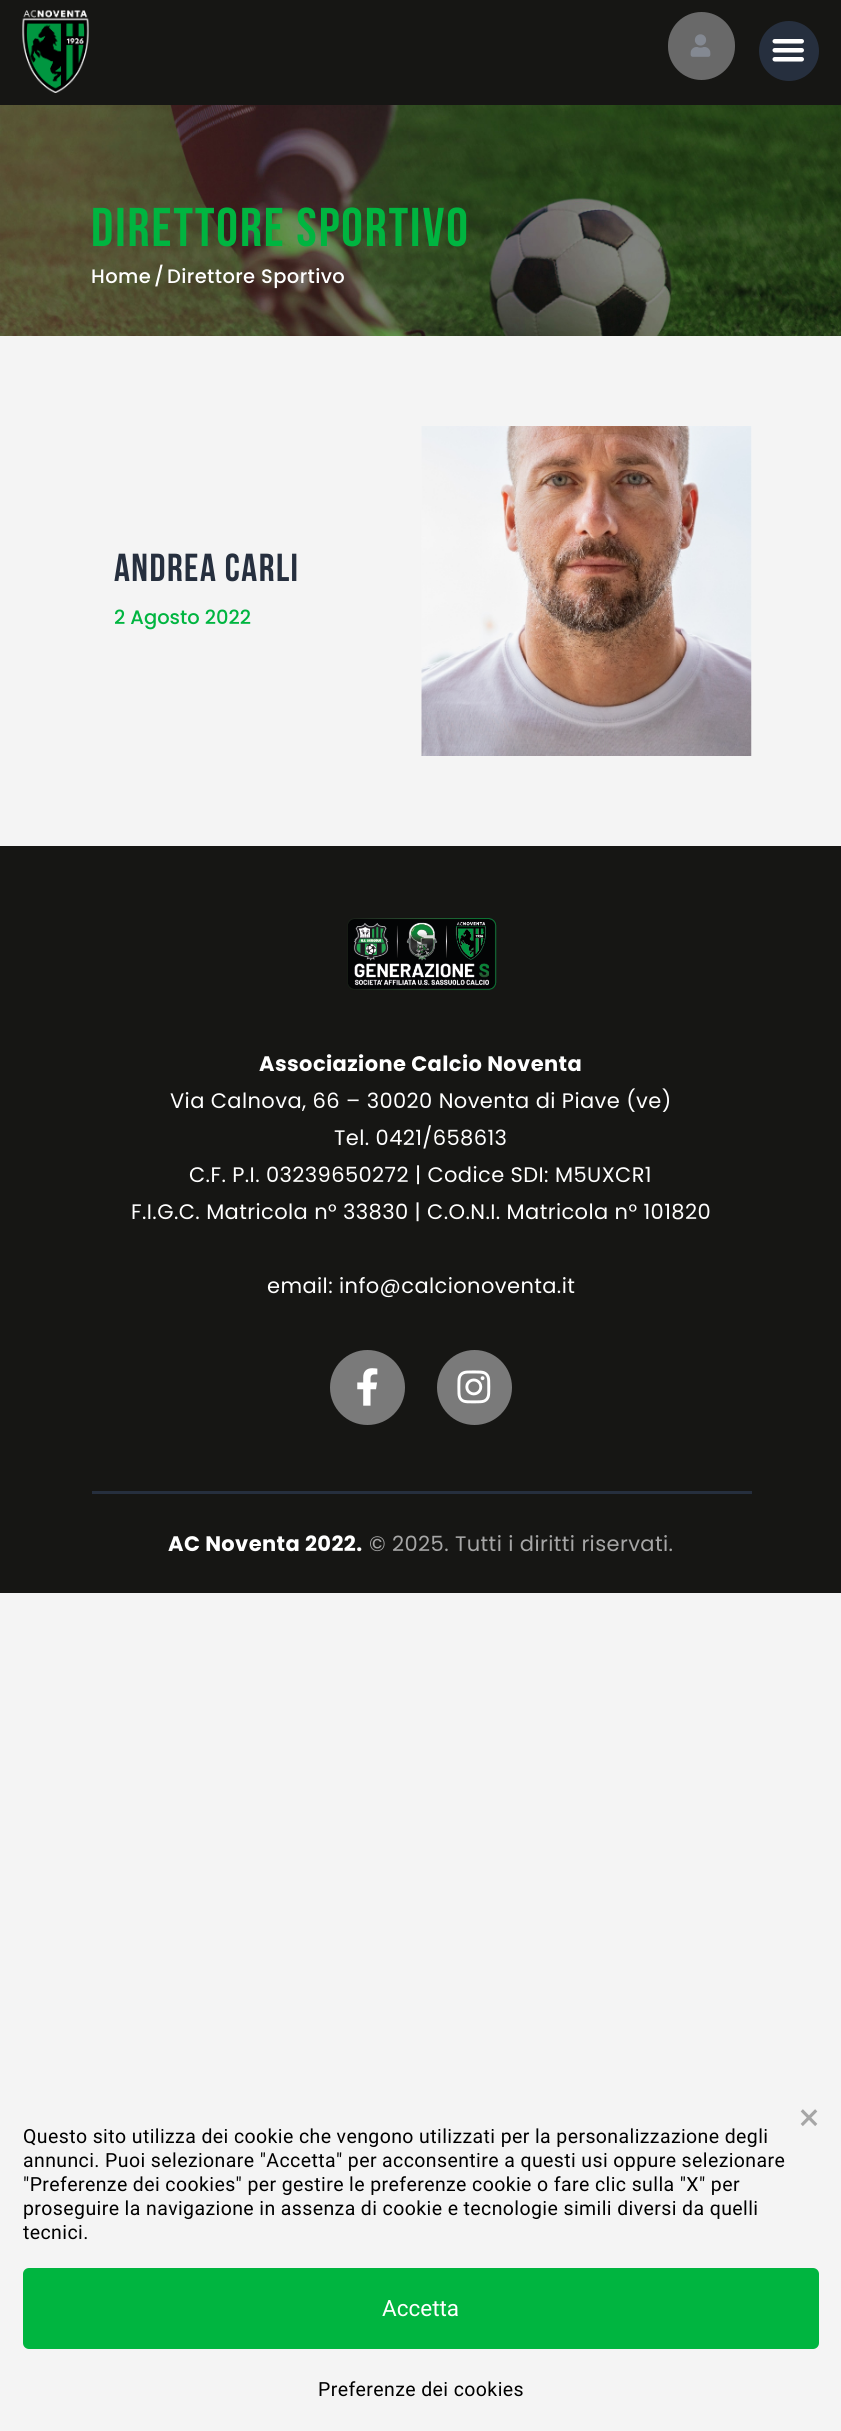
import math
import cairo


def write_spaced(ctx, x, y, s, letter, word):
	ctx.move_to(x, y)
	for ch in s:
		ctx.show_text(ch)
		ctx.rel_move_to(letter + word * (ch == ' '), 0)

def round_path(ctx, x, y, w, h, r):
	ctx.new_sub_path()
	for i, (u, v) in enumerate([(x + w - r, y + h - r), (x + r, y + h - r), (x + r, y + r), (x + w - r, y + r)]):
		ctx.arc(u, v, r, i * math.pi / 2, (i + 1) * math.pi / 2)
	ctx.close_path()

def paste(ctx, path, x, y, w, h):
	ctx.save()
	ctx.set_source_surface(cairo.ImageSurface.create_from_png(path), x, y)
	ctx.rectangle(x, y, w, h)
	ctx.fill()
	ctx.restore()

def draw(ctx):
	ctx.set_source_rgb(0.957, 0.957, 0.957)
	ctx.paint()
	ctx.set_source_rgb(0.086, 0.086, 0.082)
	ctx.rectangle(0, 0, 841, 105)
	ctx.fill()
	paste(ctx, 'media/1.png', 22, 10, 67, 83)
	ctx.set_source_rgb(0.412, 0.412, 0.412)
	round_path(ctx, 668, 12, 67, 68, 33.5)
	ctx.fill()
	paste(ctx, 'media/2.png', 690, 34, 21, 23)
	ctx.set_source_rgb(0.149, 0.184, 0.243)
	ctx.arc(789, 51, 30, 0, 2 * math.pi)
	ctx.fill()
	paste(ctx, 'media/3.png', 772, 39, 32, 23)
	paste(ctx, 'media/4.png', 0, 105, 841, 231)
	ctx.select_font_face('Bebas Neue', cairo.FONT_SLANT_NORMAL, cairo.FONT_WEIGHT_BOLD)
	ctx.set_font_size(54.5)
	ctx.set_source_rgb(0, 0.71, 0.251)
	write_spaced(ctx, 91, 246, 'Direttore Sportivo', 2, 0)
	ctx.select_font_face('Poppins Medium')
	ctx.set_font_size(19.5)
	ctx.set_source_rgb(1, 1, 1)
	for x, y, s in [
		(91, 283, 'Home'),
		(154, 283, '/'),
		(167, 283, 'Direttore Sportivo'),
	]:
		write_spaced(ctx, x, y, s, 0.4, 0)
	ctx.select_font_face('Bebas Neue', cairo.FONT_SLANT_NORMAL, cairo.FONT_WEIGHT_BOLD)
	ctx.set_font_size(39)
	ctx.set_source_rgb(0.149, 0.184, 0.243)
	write_spaced(ctx, 114, 581, 'Andrea Carli', 1.5, 0)
	ctx.select_font_face('Poppins Medium')
	ctx.set_font_size(19.5)
	ctx.set_source_rgb(0, 0.71, 0.251)
	ctx.move_to(114, 624)
	ctx.show_text('2 Agosto 2022')
	paste(ctx, 'media/5.png', 421, 426, 331, 330)
	ctx.set_source_rgb(0.086, 0.086, 0.082)
	ctx.rectangle(0, 846, 841, 747)
	ctx.fill()
	paste(ctx, 'media/6.png', 347, 918, 150, 73)
	ctx.select_font_face('Poppins', cairo.FONT_SLANT_NORMAL, cairo.FONT_WEIGHT_BOLD)
	ctx.set_font_size(21)
	ctx.set_source_rgb(1, 1, 1)
	write_spaced(ctx, 259, 1071, 'Associazione Calcio Noventa', 0.4, 0)
	ctx.select_font_face('Poppins')
	for x, y, s in [
		(170, 1108, 'Via Calnova, 66 – 30020 Noventa di Piave (ve)'),
		(334, 1145, 'Tel. 0421/658613'),
		(189, 1182, 'C.F. P.I. 03239650272 | Codice SDI: M5UXCR1'),
		(131, 1219, 'F.I.G.C. Matricola n° 33830 | C.O.N.I. Matricola n° 101820'),
		(267, 1293, 'email: info@calcionoventa.it'),
	]:
		write_spaced(ctx, x, y, s, 0.4, 0)
	ctx.set_source_rgb(0.478, 0.478, 0.478)
	ctx.new_path()
	ctx.arc(367.5, 1387.5, 37.5, 0, 2 * math.pi)
	ctx.fill()
	paste(ctx, 'media/7.png', 357, 1368, 21, 38)
	ctx.arc(474.5, 1387.5, 37.5, 0, 2 * math.pi)
	ctx.fill()
	paste(ctx, 'media/8.png', 457, 1370, 34, 34)
	ctx.set_source_rgb(0.149, 0.184, 0.243)
	ctx.rectangle(92, 1491, 660, 3)
	ctx.fill()
	ctx.select_font_face('Poppins', cairo.FONT_SLANT_NORMAL, cairo.FONT_WEIGHT_BOLD)
	ctx.set_source_rgb(1, 1, 1)
	write_spaced(ctx, 168, 1551, 'AC Noventa 2022.', 0.4, 0)
	ctx.select_font_face('Poppins')
	ctx.set_source_rgb(0.651, 0.651, 0.651)
	write_spaced(ctx, 369, 1551, '© 2025. Tutti i diritti riservati.', 0.4, 0)
	ctx.select_font_face('Roboto')
	ctx.set_font_size(38)
	write_spaced(ctx, 799, 2130, '×', 0.4, 0)
	ctx.set_font_size(19.5)
	ctx.set_source_rgb(0, 0, 0)
	for x, y, s in [
		(23, 2143, 'Questo sito utilizza dei cookie che vengono utilizzati per la personalizzazione degli'),
		(23, 2167, 'annunci. Puoi selezionare "Accetta" per acconsentire a questi usi oppure selezionare'),
		(23, 2191, '"Preferenze dei cookies" per gestire le preferenze cookie o fare clic sulla "X" per'),
		(23, 2215, 'proseguire la navigazione in assenza di cookie e tecnologie simili diversi da quelli'),
		(23, 2239, 'tecnici.'),
	]:
		write_spaced(ctx, x, y, s, 0.4, 0)
	ctx.set_source_rgb(0, 0.71, 0.251)
	round_path(ctx, 23, 2268, 796, 81, 6)
	ctx.fill()
	ctx.set_font_size(22.5)
	ctx.set_source_rgb(1, 1, 1)
	ctx.move_to(382, 2316)
	ctx.show_text('Accetta')
	ctx.set_font_size(19.5)
	ctx.set_source_rgb(0, 0, 0)
	write_spaced(ctx, 318, 2396, 'Preferenze dei cookies', 0.4, 0)


surface = cairo.ImageSurface(cairo.FORMAT_RGB24, 841, 2431)
ctx = cairo.Context(surface)
options = cairo.FontOptions()
options.set_hint_metrics(cairo.HINT_METRICS_OFF)
options.set_hint_style(cairo.HINT_STYLE_NONE)
ctx.set_font_options(options)
ctx.set_miter_limit(4)
draw(ctx)
surface.write_to_png('image.png')
